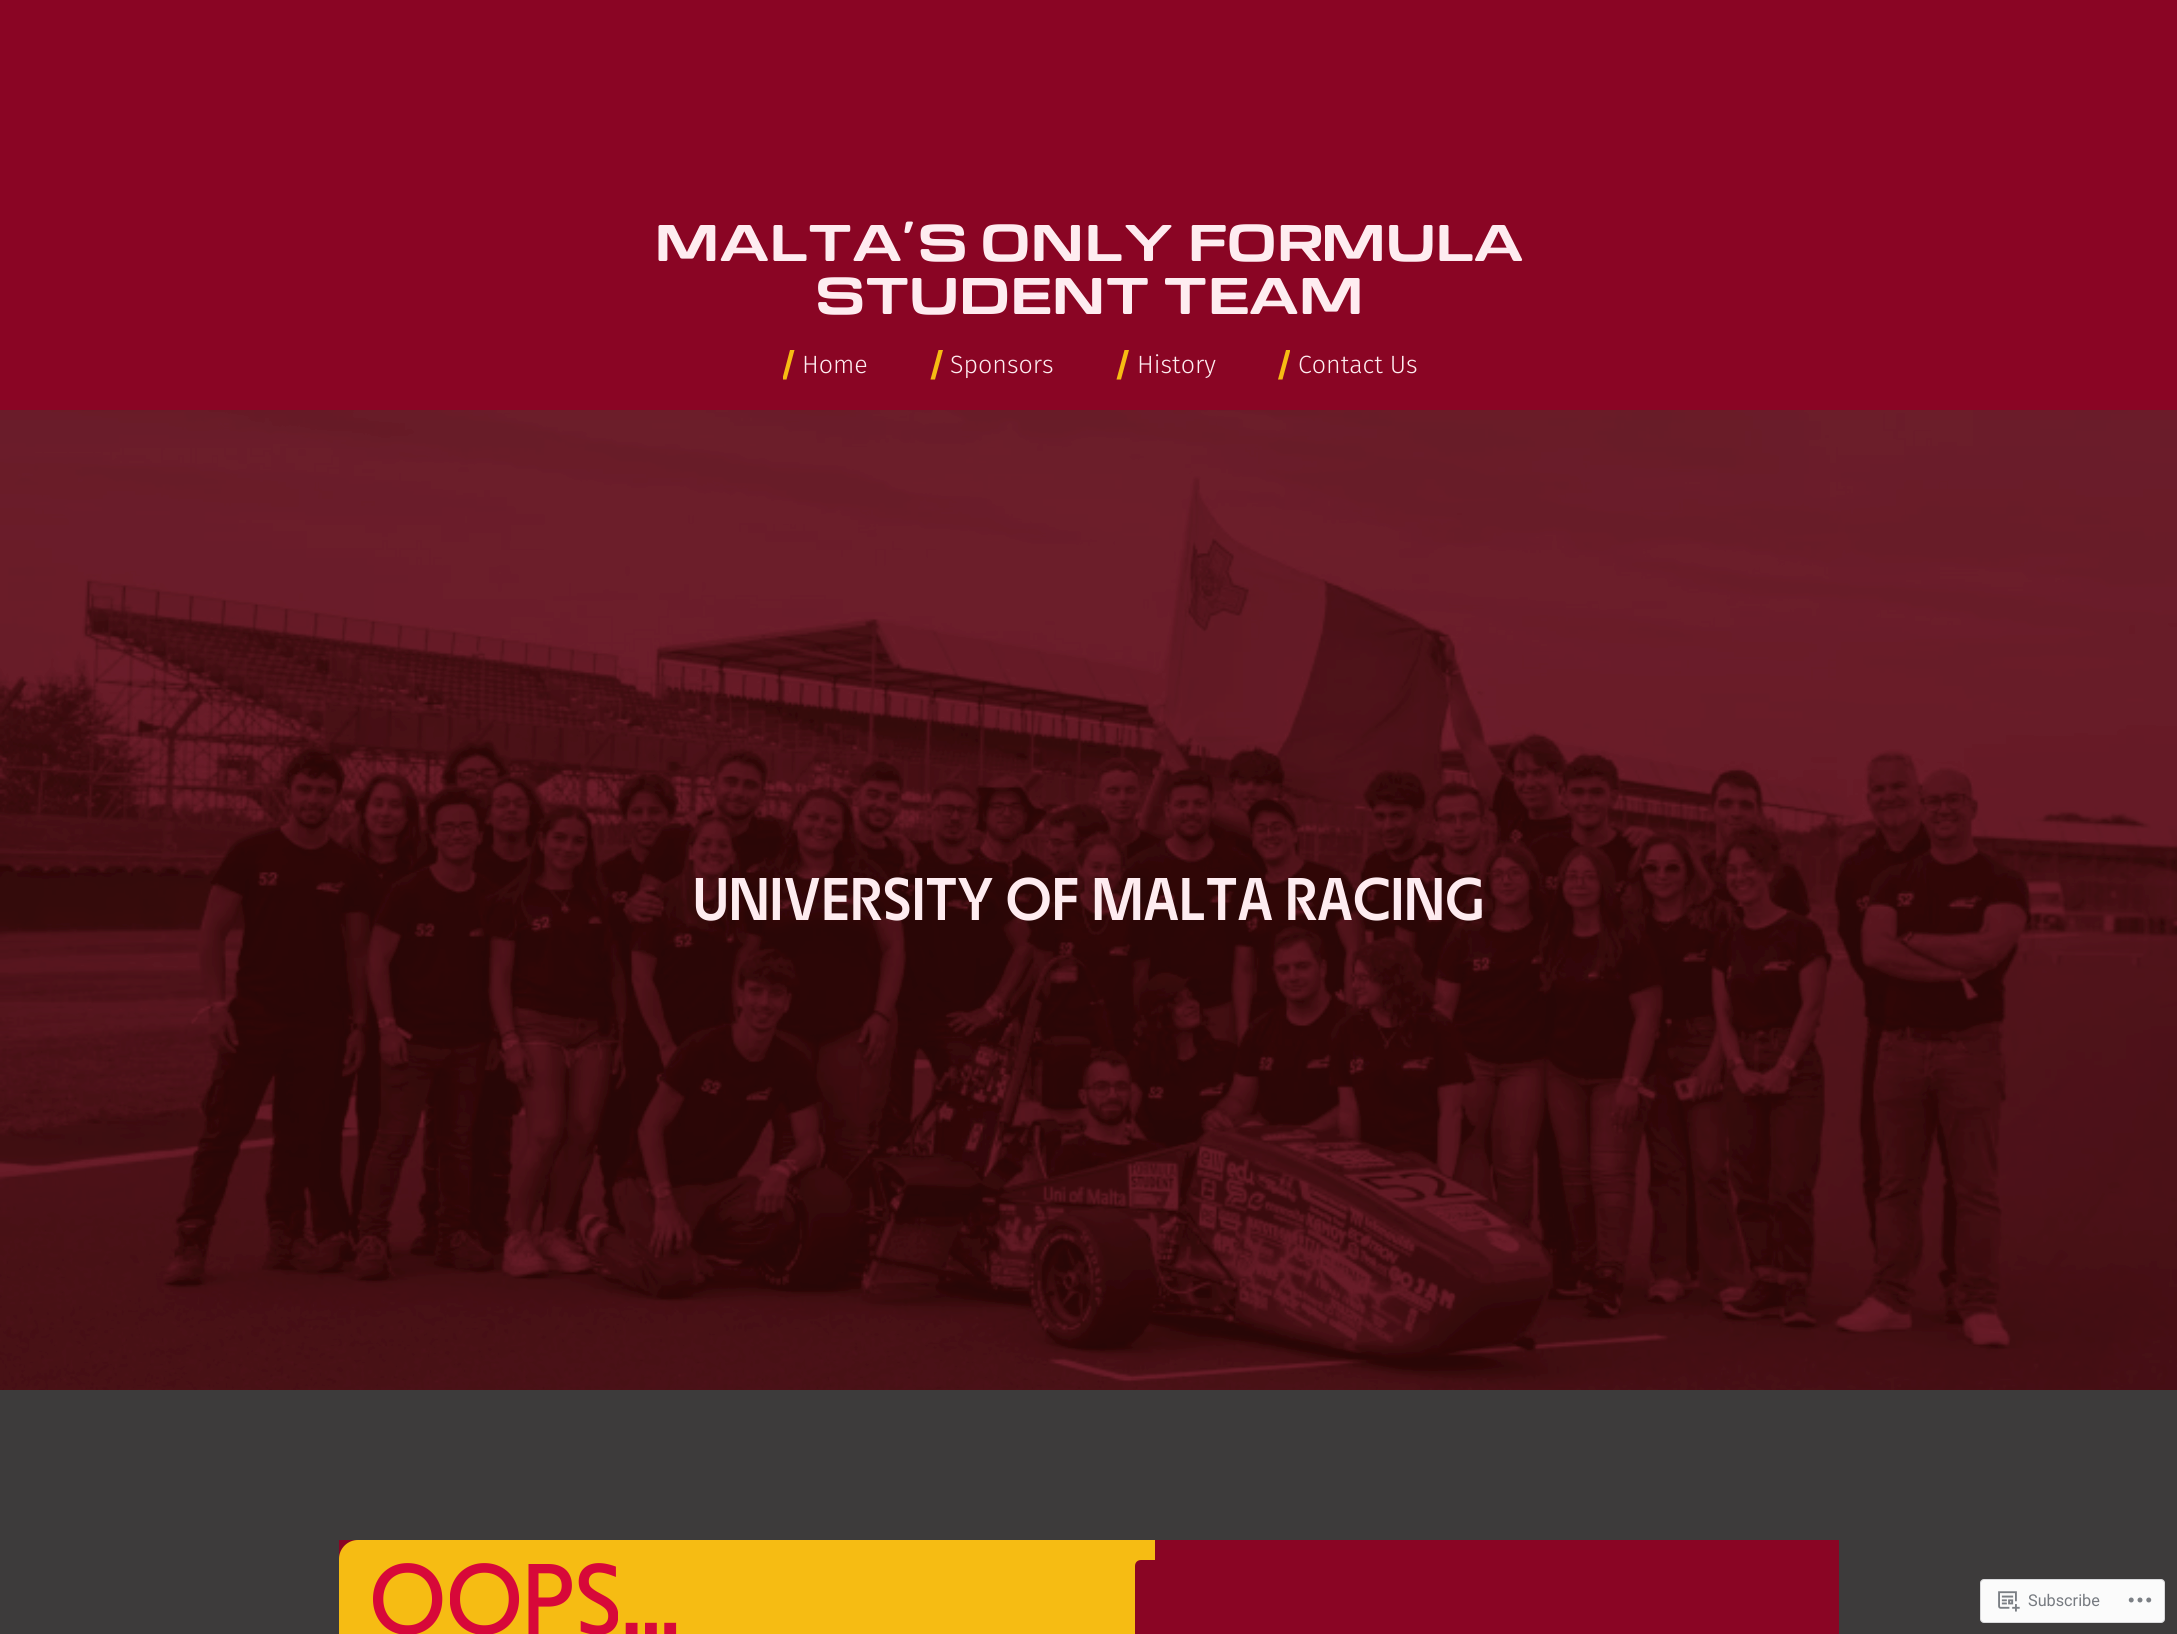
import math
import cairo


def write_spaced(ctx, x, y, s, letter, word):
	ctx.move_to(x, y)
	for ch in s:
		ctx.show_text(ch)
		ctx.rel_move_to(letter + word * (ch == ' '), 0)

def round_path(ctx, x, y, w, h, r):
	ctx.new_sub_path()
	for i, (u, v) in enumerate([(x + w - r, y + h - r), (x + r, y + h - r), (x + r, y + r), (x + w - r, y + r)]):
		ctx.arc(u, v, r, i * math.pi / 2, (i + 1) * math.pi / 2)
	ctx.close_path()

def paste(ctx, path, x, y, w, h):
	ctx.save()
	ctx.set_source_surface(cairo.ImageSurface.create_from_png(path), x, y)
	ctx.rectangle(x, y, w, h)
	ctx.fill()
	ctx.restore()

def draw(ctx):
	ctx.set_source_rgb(0.239, 0.231, 0.231)
	ctx.paint()
	ctx.set_source_rgb(0.541, 0.02, 0.141)
	ctx.rectangle(0, 0, 2177, 410)
	ctx.fill()
	ctx.select_font_face('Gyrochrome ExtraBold')
	ctx.set_font_size(48)
	ctx.set_source_rgb(0.996, 0.922, 0.941)
	write_spaced(ctx, 654, 261, 'MALTA’S ONLY FORMULA', -0.5, 0)
	write_spaced(ctx, 815, 314, 'STUDENT TEAM', -0.5, 0)
	ctx.set_source_rgb(0.961, 0.737, 0.078)
	ctx.new_path()
	ctx.move_to(783, 376.5)
	ctx.line_to(790, 350)
	ctx.line_to(794.5, 350)
	ctx.line_to(786.5, 379.5)
	ctx.line_to(783, 379.5)
	ctx.close_path()
	ctx.fill()
	ctx.select_font_face('Fira Sans Light')
	ctx.set_font_size(25)
	ctx.set_source_rgb(0.996, 0.922, 0.941)
	ctx.move_to(802, 373)
	ctx.show_text('Home')
	ctx.set_source_rgb(0.961, 0.737, 0.078)
	ctx.new_path()
	ctx.move_to(943, 350)
	ctx.line_to(935, 379.5)
	ctx.line_to(930.5, 379.5)
	ctx.line_to(938.5, 350)
	ctx.close_path()
	ctx.fill()
	ctx.set_source_rgb(0.996, 0.922, 0.941)
	ctx.move_to(950, 373)
	ctx.show_text('Sponsors')
	ctx.set_source_rgb(0.961, 0.737, 0.078)
	ctx.new_path()
	ctx.move_to(1129, 350)
	ctx.line_to(1121, 379.5)
	ctx.line_to(1116.5, 379.5)
	ctx.line_to(1124.5, 350)
	ctx.close_path()
	ctx.fill()
	ctx.set_source_rgb(0.996, 0.922, 0.941)
	ctx.move_to(1137, 373)
	ctx.show_text('History')
	ctx.set_source_rgb(0.961, 0.737, 0.078)
	ctx.new_path()
	ctx.move_to(1290, 351.5)
	ctx.line_to(1282.5, 379.5)
	ctx.line_to(1278, 379.5)
	ctx.line_to(1286, 350)
	ctx.line_to(1290, 350)
	ctx.close_path()
	ctx.fill()
	ctx.set_source_rgb(0.996, 0.922, 0.941)
	ctx.move_to(1298, 373)
	ctx.show_text('Contact Us')
	paste(ctx, 'media/1.png', 0, 410, 2177, 980)
	ctx.select_font_face('TASA Explorer SemiBold')
	ctx.set_font_size(60)
	ctx.move_to(693, 920)
	ctx.show_text('UNIVERSITY OF MALTA RACING')
	ctx.set_source_rgb(0.541, 0.02, 0.141)
	ctx.rectangle(339, 1540, 1500, 94)
	ctx.fill()
	ctx.set_source_rgb(0.961, 0.737, 0.078)
	ctx.new_path()
	ctx.move_to(358, 1540)
	ctx.line_to(1155, 1540)
	ctx.line_to(1155, 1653)
	ctx.line_to(358, 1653)
	ctx.curve_to(347.5, 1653, 339, 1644.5, 339, 1634)
	ctx.line_to(339, 1559)
	ctx.curve_to(339, 1548.5, 347.5, 1540, 358, 1540)
	ctx.close_path()
	ctx.fill()
	ctx.select_font_face('TASA Explorer Medium')
	ctx.set_font_size(100)
	ctx.set_source_rgb(0.843, 0.035, 0.224)
	write_spaced(ctx, 369, 1634, 'OOPS…', -0.5, 0)
	ctx.set_source_rgb(0.541, 0.02, 0.141)
	ctx.new_path()
	ctx.move_to(1141, 1560)
	ctx.line_to(1155, 1560)
	ctx.line_to(1155, 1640)
	ctx.line_to(1141, 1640)
	ctx.curve_to(1137.5, 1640, 1135, 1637.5, 1135, 1634)
	ctx.line_to(1135, 1566)
	ctx.curve_to(1135, 1562.5, 1137.5, 1560, 1141, 1560)
	ctx.close_path()
	ctx.fill()
	ctx.set_source_rgb(0.984, 0.984, 0.984)
	round_path(ctx, 1980.5, 1579.5, 184, 43, 3.5)
	ctx.fill_preserve()
	ctx.set_source_rgb(0.851, 0.851, 0.859)
	ctx.set_line_width(1)
	ctx.stroke()
	paste(ctx, 'media/2.png', 1998, 1591, 22, 21)
	ctx.select_font_face('Roboto')
	ctx.set_font_size(16.25)
	ctx.set_source_rgb(0.467, 0.482, 0.506)
	ctx.move_to(2028, 1606)
	ctx.show_text('Subscribe')
	paste(ctx, 'media/3.png', 2128, 1597, 24, 6)


surface = cairo.ImageSurface(cairo.FORMAT_RGB24, 2177, 1634)
ctx = cairo.Context(surface)
options = cairo.FontOptions()
options.set_hint_metrics(cairo.HINT_METRICS_OFF)
options.set_hint_style(cairo.HINT_STYLE_NONE)
ctx.set_font_options(options)
ctx.set_miter_limit(4)
draw(ctx)
surface.write_to_png('image.png')
